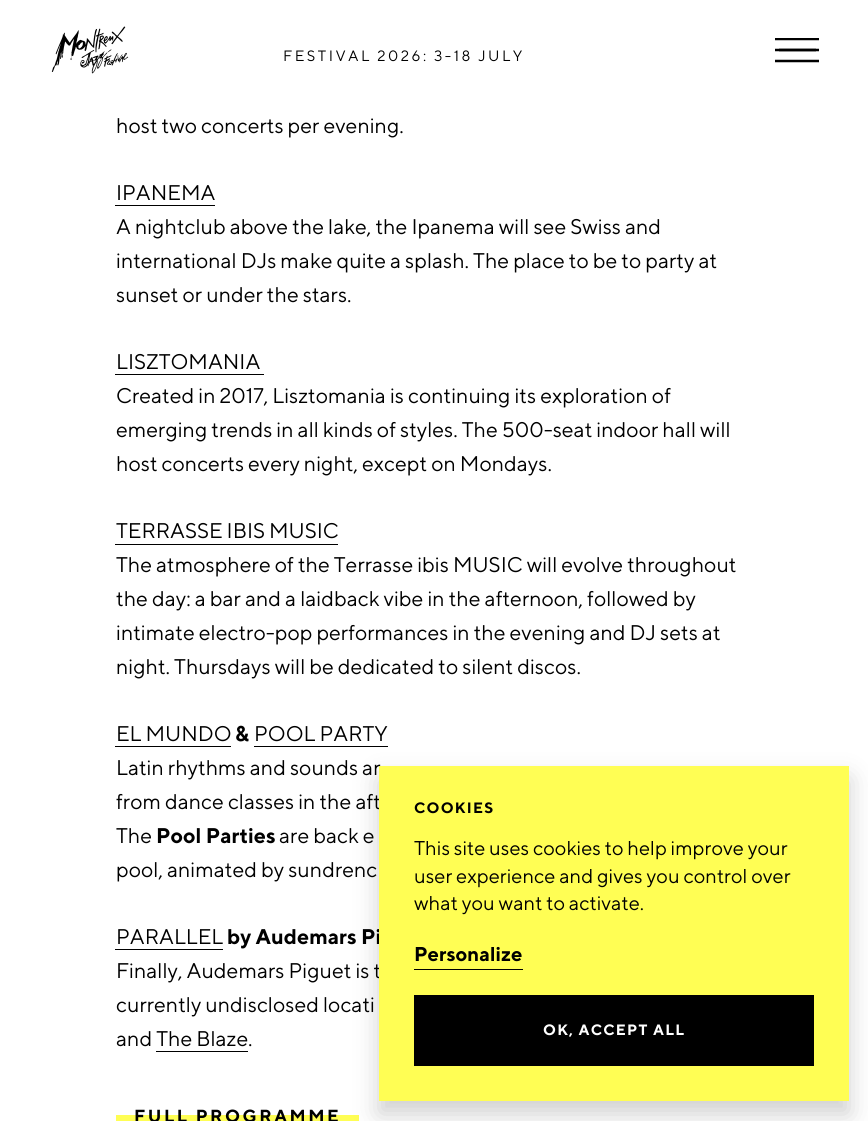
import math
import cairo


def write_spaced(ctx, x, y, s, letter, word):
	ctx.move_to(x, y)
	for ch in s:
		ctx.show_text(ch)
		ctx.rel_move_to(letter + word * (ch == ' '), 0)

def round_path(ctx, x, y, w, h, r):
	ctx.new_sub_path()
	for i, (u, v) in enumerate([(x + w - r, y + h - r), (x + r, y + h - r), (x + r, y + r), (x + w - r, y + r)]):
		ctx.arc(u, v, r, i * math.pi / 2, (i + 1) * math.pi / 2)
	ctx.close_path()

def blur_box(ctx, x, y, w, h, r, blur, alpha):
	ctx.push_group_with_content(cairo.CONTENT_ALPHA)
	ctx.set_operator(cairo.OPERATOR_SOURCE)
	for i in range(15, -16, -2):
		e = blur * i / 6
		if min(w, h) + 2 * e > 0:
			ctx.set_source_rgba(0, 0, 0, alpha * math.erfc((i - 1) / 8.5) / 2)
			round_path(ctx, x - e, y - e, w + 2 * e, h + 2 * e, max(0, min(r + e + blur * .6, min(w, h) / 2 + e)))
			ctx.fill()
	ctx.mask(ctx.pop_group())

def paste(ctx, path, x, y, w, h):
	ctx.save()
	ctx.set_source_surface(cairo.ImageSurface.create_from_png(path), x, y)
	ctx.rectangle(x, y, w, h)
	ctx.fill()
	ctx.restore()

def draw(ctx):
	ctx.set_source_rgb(1, 1, 1)
	ctx.paint()
	paste(ctx, 'media/1.png', 51, 26, 78, 48)
	ctx.select_font_face('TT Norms')
	ctx.set_font_size(15)
	ctx.set_source_rgb(0, 0, 0)
	write_spaced(ctx, 283, 61, 'FESTIVAL 2026: 3-18 JULY', 2.5, 0)
	ctx.save()
	ctx.rectangle(775, 38, 44, 25)
	ctx.clip()
	ctx.new_path()
	ctx.move_to(775, 61)
	ctx.line_to(820, 61)
	ctx.move_to(775, 50)
	ctx.line_to(820, 50)
	ctx.move_to(775, 39)
	ctx.line_to(820, 39)
	ctx.set_line_width(2.5)
	ctx.stroke()
	ctx.restore()
	ctx.new_path()
	ctx.move_to(779, 50)
	ctx.line_to(816, 50)
	ctx.set_line_width(2.5)
	ctx.stroke()
	ctx.set_font_size(21.25)
	ctx.move_to(116, 133)
	ctx.show_text('host two concerts per evening.')
	ctx.move_to(116, 200)
	ctx.show_text('IPANEMA')
	ctx.rectangle(115, 205, 100, 1)
	ctx.fill()
	for x, y, s in [
		(116, 234, 'A nightclub above the lake, the Ipanema will see Swiss and'),
		(116, 268, 'international DJs make quite a splash. The place to be to party at'),
		(116, 302, 'sunset or under the stars.'),
		(116, 369, 'LISZTOMANIA'),
	]:
		ctx.move_to(x, y)
		ctx.show_text(s)
	ctx.rectangle(115, 374, 149, 1)
	ctx.fill()
	for x, y, s in [
		(116, 403, 'Created in 2017, Lisztomania is continuing its exploration of'),
		(116, 437, 'emerging trends in all kinds of styles. The 500-seat indoor hall will'),
		(116, 471, 'host concerts every night, except on Mondays.'),
		(116, 538, 'TERRASSE IBIS MUSIC'),
	]:
		ctx.move_to(x, y)
		ctx.show_text(s)
	ctx.rectangle(115, 544, 223, 1)
	ctx.fill()
	for x, y, s in [
		(116, 572, 'The atmosphere of the Terrasse ibis MUSIC will evolve throughout'),
		(116, 606, 'the day: a bar and a laidback vibe in the afternoon, followed by'),
		(116, 640, 'intimate electro-pop performances in the evening and DJ sets at'),
		(116, 674, 'night. Thursdays will be dedicated to silent discos.'),
		(116, 741, 'EL MUNDO'),
	]:
		ctx.move_to(x, y)
		ctx.show_text(s)
	ctx.rectangle(115, 746, 116, 1)
	ctx.fill()
	ctx.select_font_face('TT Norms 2')
	ctx.move_to(235, 741)
	ctx.show_text('&')
	ctx.select_font_face('TT Norms')
	ctx.move_to(254, 741)
	ctx.show_text('POOL PARTY')
	ctx.rectangle(254, 746, 134, 1)
	ctx.fill()
	for x, y, s in [
		(116, 775, 'Latin rhythms and sounds ar'),
		(116, 809, 'from dance classes in the aft'),
		(116, 843, 'The'),
	]:
		ctx.move_to(x, y)
		ctx.show_text(s)
	ctx.select_font_face('TT Norms 2')
	ctx.move_to(156, 843)
	ctx.show_text('Pool Parties')
	ctx.select_font_face('TT Norms')
	for x, y, s in [
		(279, 843, 'are back e'),
		(116, 877, 'pool, animated by sundrenc'),
		(116, 944, 'PARALLEL'),
	]:
		ctx.move_to(x, y)
		ctx.show_text(s)
	ctx.rectangle(115, 949, 108, 1)
	ctx.fill()
	ctx.select_font_face('TT Norms 2')
	ctx.move_to(227, 944)
	ctx.show_text('by Audemars Pi')
	ctx.select_font_face('TT Norms')
	for x, y, s in [
		(116, 978, 'Finally, Audemars Piguet is t'),
		(116, 1012, 'currently undisclosed locati'),
		(116, 1046, 'and The Blaze'),
		(248, 1046, '.'),
	]:
		ctx.move_to(x, y)
		ctx.show_text(s)
	ctx.rectangle(156, 1051, 92, 1)
	ctx.fill()
	ctx.set_source_rgb(1, 0.996, 0.329)
	ctx.rectangle(116, 1115, 243, 6)
	ctx.fill()
	ctx.select_font_face('TT Norms 2')
	ctx.set_font_size(17.5)
	ctx.set_source_rgb(0, 0, 0)
	write_spaced(ctx, 134, 1122, 'FULL PROGRAMME', 2.5, 0)
	ctx.set_source_rgb(0, 0, 0)
	blur_box(ctx, 379, 779, 470, 335, 0, 12.5, 0.19)
	ctx.set_source_rgb(1, 0.996, 0.329)
	ctx.rectangle(379, 766, 470, 335)
	ctx.fill()
	ctx.set_font_size(15)
	ctx.set_source_rgb(0, 0, 0)
	write_spaced(ctx, 414, 813, 'COOKIES', 1.25, 0)
	ctx.select_font_face('TT Norms')
	ctx.set_font_size(20)
	for x, y, s in [
		(414, 855, 'This site uses cookies to help improve your'),
		(414, 883, 'user experience and gives you control over'),
		(414, 910, 'what you want to activate.'),
	]:
		ctx.move_to(x, y)
		ctx.show_text(s)
	ctx.rectangle(414, 969, 109, 1)
	ctx.fill()
	ctx.select_font_face('TT Norms 2')
	ctx.move_to(414, 961)
	ctx.show_text('Personalize')
	ctx.rectangle(414, 995, 400, 71)
	ctx.fill()
	ctx.set_font_size(15)
	ctx.set_source_rgb(1, 1, 1)
	write_spaced(ctx, 543, 1035, 'OK, ACCEPT ALL', 1.25, 0)


surface = cairo.ImageSurface(cairo.FORMAT_RGB24, 868, 1121)
ctx = cairo.Context(surface)
options = cairo.FontOptions()
options.set_hint_metrics(cairo.HINT_METRICS_OFF)
options.set_hint_style(cairo.HINT_STYLE_NONE)
ctx.set_font_options(options)
ctx.set_miter_limit(4)
draw(ctx)
surface.write_to_png('image.png')
